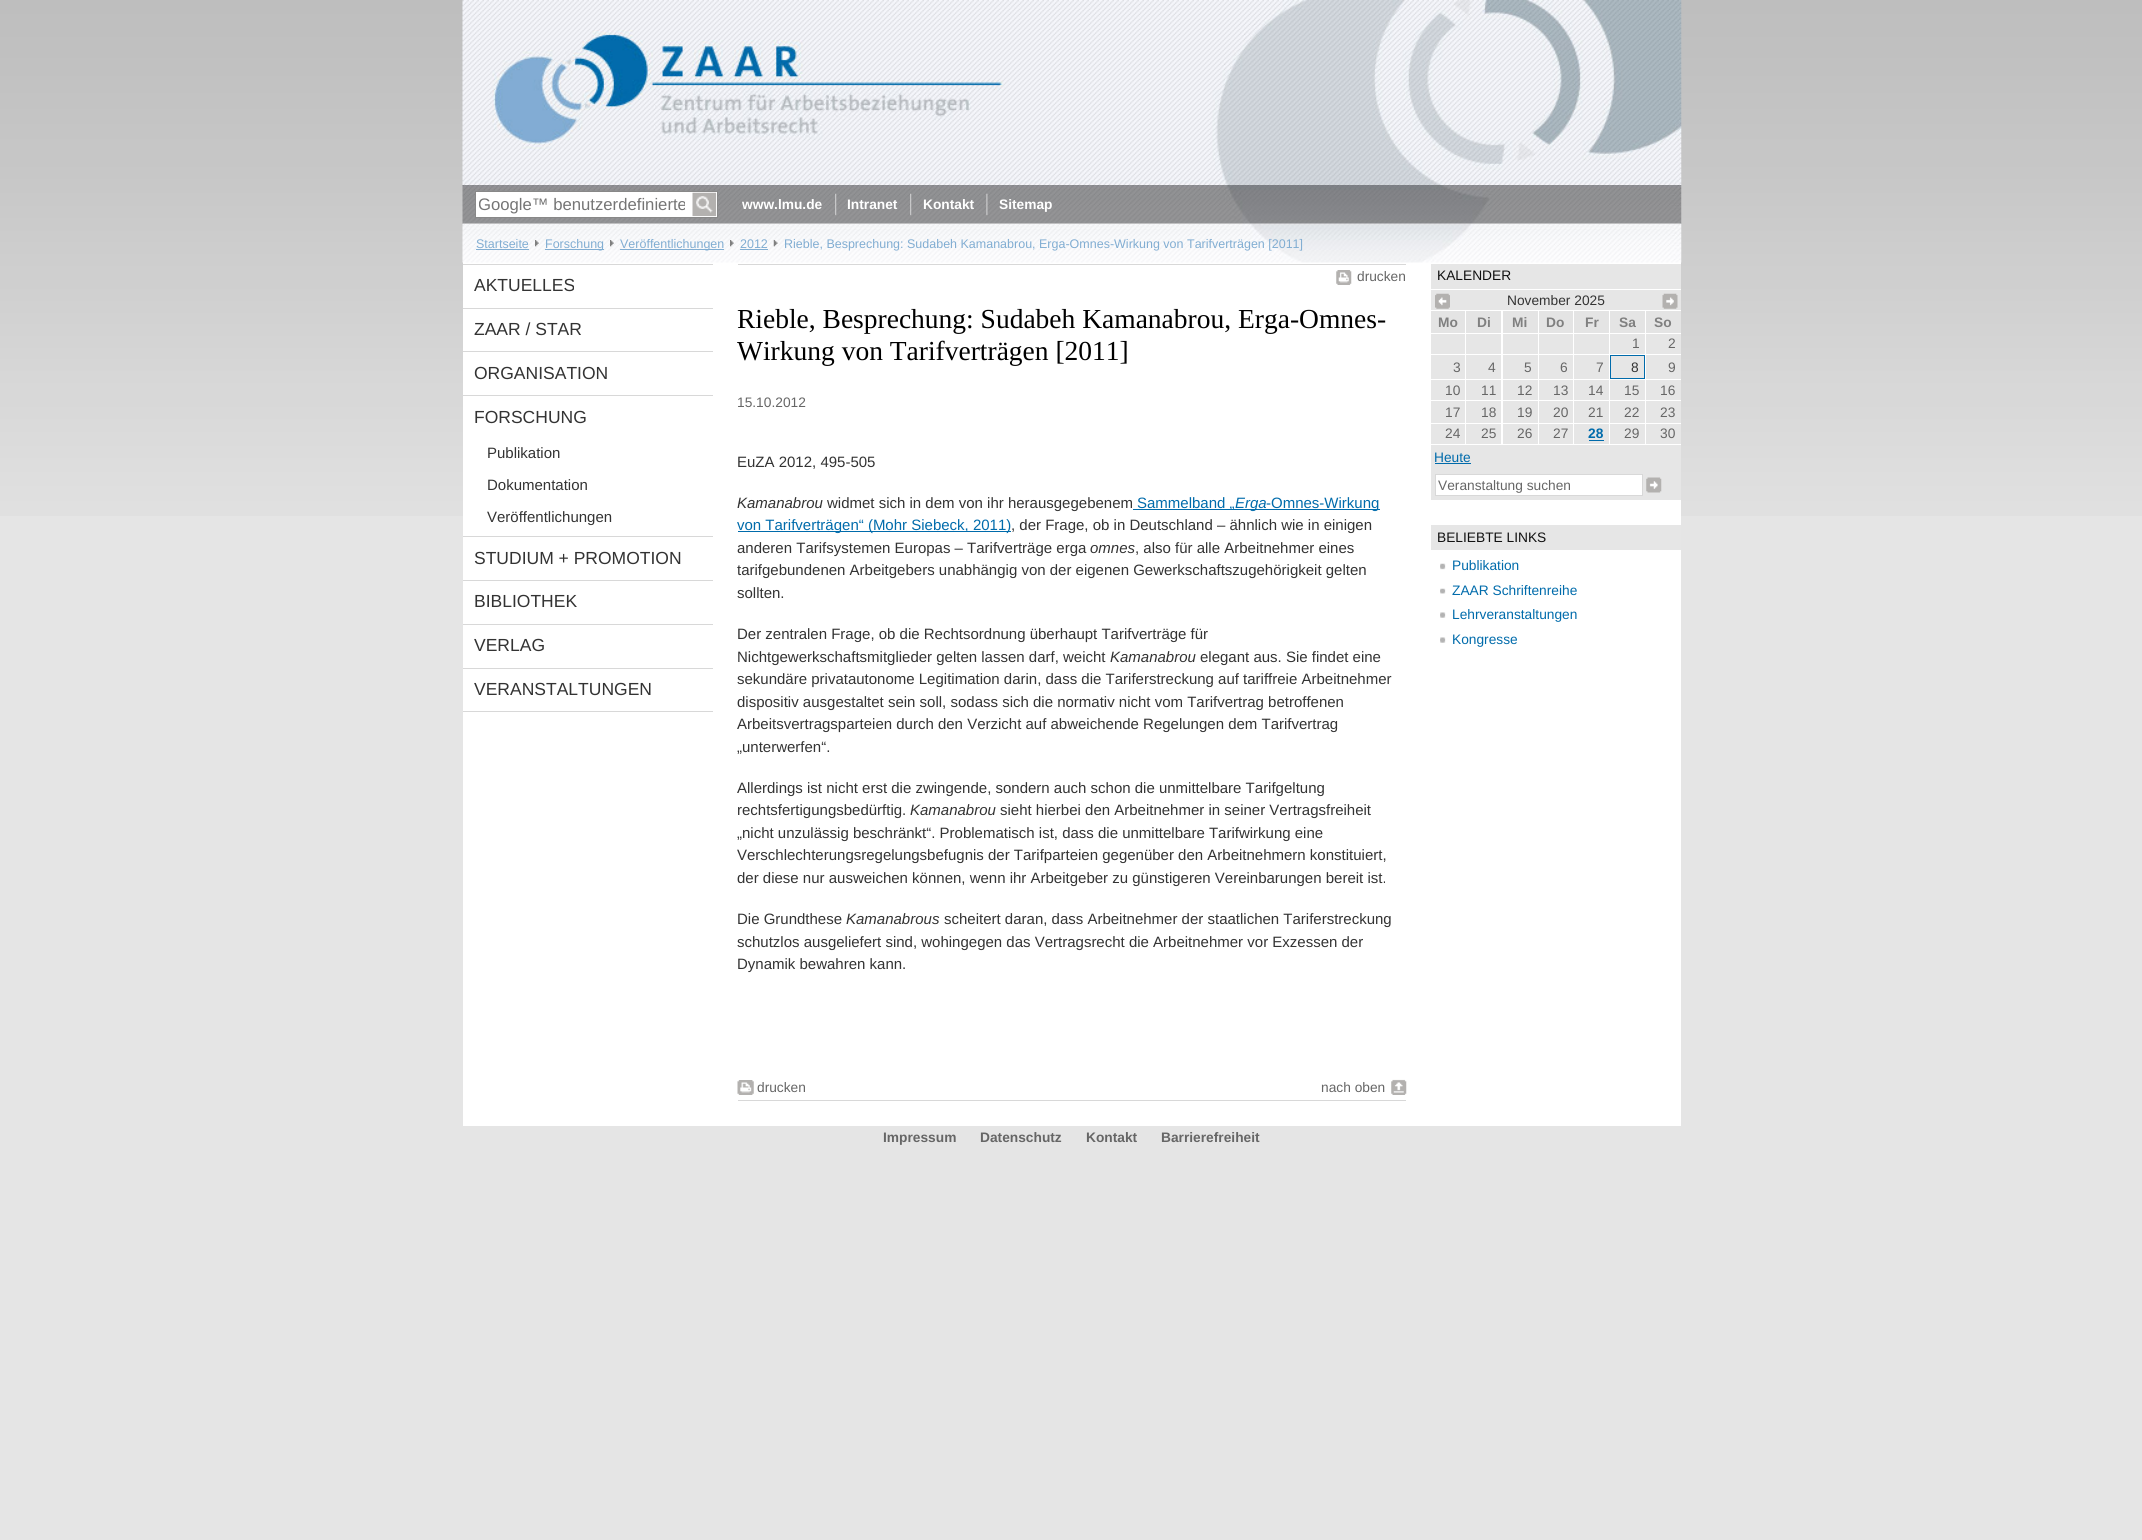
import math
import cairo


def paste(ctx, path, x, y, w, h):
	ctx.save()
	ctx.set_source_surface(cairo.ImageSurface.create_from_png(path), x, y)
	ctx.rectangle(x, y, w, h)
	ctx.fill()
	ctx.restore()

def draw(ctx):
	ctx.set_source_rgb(0.898, 0.898, 0.898)
	ctx.paint()
	paste(ctx, 'media/1.png', 0, 0, 2142, 516)
	ctx.set_source_rgb(1, 1, 1)
	ctx.rectangle(463, 223, 1218, 903)
	ctx.fill()
	paste(ctx, 'media/2.png', 462, 0, 1220, 185)
	paste(ctx, 'media/3.png', 462, 185, 1220, 39)
	ctx.rectangle(475.5, 191.5, 242, 26)
	ctx.fill_preserve()
	ctx.set_source_rgb(0.533, 0.533, 0.533)
	ctx.set_line_width(1)
	ctx.stroke()
	ctx.save()
	ctx.rectangle(479, 195, 206, 19)
	ctx.clip()
	ctx.select_font_face('Liberation Sans')
	ctx.set_font_size(16.7)
	ctx.set_source_rgb(0.459, 0.459, 0.459)
	ctx.move_to(478, 210)
	ctx.show_text('Google™ benutzerdefinierte')
	ctx.restore()
	paste(ctx, 'media/4.png', 692, 192, 25, 25)
	ctx.select_font_face('Liberation Sans', cairo.FONT_SLANT_NORMAL, cairo.FONT_WEIGHT_BOLD)
	ctx.set_font_size(13.75)
	ctx.set_source_rgb(1, 1, 1)
	ctx.move_to(742, 209)
	ctx.show_text('www.lmu.de')
	paste(ctx, 'media/5.png', 835, 193, 2, 23)
	ctx.move_to(847, 209)
	ctx.show_text('Intranet')
	paste(ctx, 'media/6.png', 910, 193, 2, 23)
	ctx.move_to(923, 209)
	ctx.show_text('Kontakt')
	paste(ctx, 'media/7.png', 986, 193, 2, 23)
	ctx.move_to(999, 209)
	ctx.show_text('Sitemap')
	paste(ctx, 'media/8.png', 462, 223, 1220, 40)
	ctx.select_font_face('Liberation Sans')
	ctx.set_font_size(12.5)
	ctx.set_source_rgb(0.506, 0.678, 0.824)
	ctx.move_to(476, 248)
	ctx.show_text('Startseite')
	ctx.rectangle(476, 249, 53, 1)
	ctx.fill()
	paste(ctx, 'media/9.png', 535, 240, 4, 7)
	ctx.rectangle(545, 249, 59, 1)
	ctx.fill()
	ctx.move_to(545, 248)
	ctx.show_text('Forschung')
	paste(ctx, 'media/10.png', 610, 240, 4, 7)
	ctx.rectangle(620, 249, 104, 1)
	ctx.fill()
	ctx.move_to(620, 248)
	ctx.show_text('Veröffentlichungen')
	paste(ctx, 'media/11.png', 730, 240, 4, 7)
	ctx.move_to(740, 248)
	ctx.show_text('2012')
	ctx.rectangle(740, 249, 28, 1)
	ctx.fill()
	paste(ctx, 'media/12.png', 773, 240, 5, 7)
	ctx.move_to(784, 248)
	ctx.show_text('Rieble, Besprechung: Sudabeh Kamanabrou, Erga-Omnes-Wirkung von Tarifverträgen [2011]')
	ctx.set_source_rgb(0.847, 0.847, 0.847)
	ctx.rectangle(463, 264, 250, 1)
	ctx.fill()
	ctx.rectangle(463, 308, 250, 1)
	ctx.fill()
	ctx.set_font_size(17.5)
	ctx.set_source_rgb(0.2, 0.2, 0.2)
	ctx.move_to(474, 291)
	ctx.show_text('AKTUELLES')
	ctx.set_source_rgb(0.847, 0.847, 0.847)
	ctx.rectangle(463, 351, 250, 1)
	ctx.fill()
	ctx.set_source_rgb(0.2, 0.2, 0.2)
	ctx.move_to(474, 335)
	ctx.show_text('ZAAR / STAR')
	ctx.set_source_rgb(0.847, 0.847, 0.847)
	ctx.rectangle(463, 395, 250, 1)
	ctx.fill()
	ctx.set_source_rgb(0.2, 0.2, 0.2)
	ctx.move_to(474, 379)
	ctx.show_text('ORGANISATION')
	ctx.set_source_rgb(0.847, 0.847, 0.847)
	ctx.rectangle(463, 536, 250, 1)
	ctx.fill()
	ctx.set_source_rgb(0.2, 0.2, 0.2)
	ctx.move_to(474, 423)
	ctx.show_text('FORSCHUNG')
	ctx.set_font_size(15)
	for x, y, s in [
		(487, 458, 'Publikation'),
		(487, 490, 'Dokumentation'),
		(487, 522, 'Veröffentlichungen'),
	]:
		ctx.move_to(x, y)
		ctx.show_text(s)
	ctx.set_source_rgb(0.847, 0.847, 0.847)
	ctx.rectangle(463, 580, 250, 1)
	ctx.fill()
	ctx.set_font_size(17.5)
	ctx.set_source_rgb(0.2, 0.2, 0.2)
	ctx.move_to(474, 564)
	ctx.show_text('STUDIUM + PROMOTION')
	ctx.set_source_rgb(0.847, 0.847, 0.847)
	ctx.rectangle(463, 624, 250, 1)
	ctx.fill()
	ctx.set_source_rgb(0.2, 0.2, 0.2)
	ctx.move_to(474, 607)
	ctx.show_text('BIBLIOTHEK')
	ctx.set_source_rgb(0.847, 0.847, 0.847)
	ctx.rectangle(463, 668, 250, 1)
	ctx.fill()
	ctx.set_source_rgb(0.2, 0.2, 0.2)
	ctx.move_to(474, 651)
	ctx.show_text('VERLAG')
	ctx.set_source_rgb(0.847, 0.847, 0.847)
	ctx.rectangle(463, 711, 250, 1)
	ctx.fill()
	ctx.set_source_rgb(0.2, 0.2, 0.2)
	ctx.move_to(474, 695)
	ctx.show_text('VERANSTALTUNGEN')
	ctx.set_source_rgb(0.847, 0.847, 0.847)
	ctx.rectangle(738, 264, 668, 1)
	ctx.fill()
	paste(ctx, 'media/13.png', 1336, 270, 16, 15)
	ctx.set_font_size(13.75)
	ctx.set_source_rgb(0.4, 0.4, 0.4)
	ctx.move_to(1357, 281)
	ctx.show_text('drucken')
	ctx.select_font_face('Liberation Serif')
	ctx.set_font_size(27.5)
	ctx.set_source_rgb(0, 0, 0)
	ctx.move_to(737, 328)
	ctx.show_text('Rieble, Besprechung: Sudabeh Kamanabrou, Erga-Omnes-')
	ctx.move_to(737, 360)
	ctx.show_text('Wirkung von Tarifverträgen [2011]')
	ctx.select_font_face('Liberation Sans')
	ctx.set_font_size(13.75)
	ctx.set_source_rgb(0.4, 0.4, 0.4)
	ctx.move_to(737, 407)
	ctx.show_text('15.10.2012')
	ctx.set_font_size(15)
	ctx.set_source_rgb(0.2, 0.2, 0.2)
	ctx.move_to(737, 467)
	ctx.show_text('EuZA 2012, 495-505')
	ctx.select_font_face('Liberation Sans', cairo.FONT_SLANT_ITALIC)
	ctx.move_to(737, 508)
	ctx.show_text('Kamanabrou')
	ctx.select_font_face('Liberation Sans')
	ctx.move_to(827, 508)
	ctx.show_text('widmet sich in dem von ihr herausgegebenem')
	ctx.set_source_rgb(0, 0.42, 0.671)
	ctx.rectangle(1133, 509, 247, 1)
	ctx.fill()
	ctx.move_to(1137, 508)
	ctx.show_text('Sammelband „')
	ctx.select_font_face('Liberation Sans', cairo.FONT_SLANT_ITALIC)
	ctx.move_to(1235, 508)
	ctx.show_text('Erga')
	ctx.select_font_face('Liberation Sans')
	ctx.move_to(1266, 508)
	ctx.show_text('-Omnes-Wirkung')
	ctx.rectangle(738, 531, 273, 1)
	ctx.fill()
	ctx.move_to(737, 530)
	ctx.show_text('von Tarifverträgen“ (Mohr Siebeck, 2011)')
	ctx.set_source_rgb(0.2, 0.2, 0.2)
	ctx.move_to(1011, 530)
	ctx.show_text(', der Frage, ob in Deutschland – ähnlich wie in einigen')
	ctx.move_to(737, 553)
	ctx.show_text('anderen Tarifsystemen Europas – Tarifverträge erga')
	ctx.select_font_face('Liberation Sans', cairo.FONT_SLANT_ITALIC)
	ctx.move_to(1090, 553)
	ctx.show_text('omnes')
	ctx.select_font_face('Liberation Sans')
	for x, y, s in [
		(1135, 553, ', also für alle Arbeitnehmer eines'),
		(737, 575, 'tarifgebundenen Arbeitgebers unabhängig von der eigenen Gewerkschaftszugehörigkeit gelten'),
		(737, 598, 'sollten.'),
		(737, 639, 'Der zentralen Frage, ob die Rechtsordnung überhaupt Tarifverträge für'),
		(737, 662, 'Nichtgewerkschaftsmitglieder gelten lassen darf, weicht'),
	]:
		ctx.move_to(x, y)
		ctx.show_text(s)
	ctx.select_font_face('Liberation Sans', cairo.FONT_SLANT_ITALIC)
	ctx.move_to(1110, 662)
	ctx.show_text('Kamanabrou')
	ctx.select_font_face('Liberation Sans')
	for x, y, s in [
		(1200, 662, 'elegant aus. Sie findet eine'),
		(737, 684, 'sekundäre privatautonome Legitimation darin, dass die Tariferstreckung auf tariffreie Arbeitnehmer'),
		(737, 707, 'dispositiv ausgestaltet sein soll, sodass sich die normativ nicht vom Tarifvertrag betroffenen'),
		(737, 729, 'Arbeitsvertragsparteien durch den Verzicht auf abweichende Regelungen dem Tarifvertrag'),
		(737, 752, '„unterwerfen“.'),
		(737, 793, 'Allerdings ist nicht erst die zwingende, sondern auch schon die unmittelbare Tarifgeltung'),
		(737, 815, 'rechtsfertigungsbedürftig.'),
	]:
		ctx.move_to(x, y)
		ctx.show_text(s)
	ctx.select_font_face('Liberation Sans', cairo.FONT_SLANT_ITALIC)
	ctx.move_to(910, 815)
	ctx.show_text('Kamanabrou')
	ctx.select_font_face('Liberation Sans')
	for x, y, s in [
		(1000, 815, 'sieht hierbei den Arbeitnehmer in seiner Vertragsfreiheit'),
		(737, 838, '„nicht unzulässig beschränkt“. Problematisch ist, dass die unmittelbare Tarifwirkung eine'),
		(737, 860, 'Verschlechterungsregelungsbefugnis der Tarifparteien gegenüber den Arbeitnehmern konstituiert,'),
		(737, 883, 'der diese nur ausweichen können, wenn ihr Arbeitgeber zu günstigeren Vereinbarungen bereit ist.'),
		(737, 924, 'Die Grundthese'),
	]:
		ctx.move_to(x, y)
		ctx.show_text(s)
	ctx.select_font_face('Liberation Sans', cairo.FONT_SLANT_ITALIC)
	ctx.move_to(846, 924)
	ctx.show_text('Kamanabrous')
	ctx.select_font_face('Liberation Sans')
	for x, y, s in [
		(944, 924, 'scheitert daran, dass Arbeitnehmer der staatlichen Tariferstreckung'),
		(737, 947, 'schutzlos ausgeliefert sind, wohingegen das Vertragsrecht die Arbeitnehmer vor Exzessen der'),
		(737, 969, 'Dynamik bewahren kann.'),
	]:
		ctx.move_to(x, y)
		ctx.show_text(s)
	ctx.set_source_rgb(0.847, 0.847, 0.847)
	ctx.rectangle(738, 1100, 668, 1)
	ctx.fill()
	paste(ctx, 'media/14.png', 737, 1080, 17, 15)
	ctx.set_font_size(13.75)
	ctx.set_source_rgb(0.4, 0.4, 0.4)
	ctx.move_to(757, 1092)
	ctx.show_text('drucken')
	paste(ctx, 'media/15.png', 1391, 1079, 16, 16)
	ctx.move_to(1321, 1092)
	ctx.show_text('nach oben')
	ctx.set_source_rgb(0.902, 0.902, 0.902)
	ctx.rectangle(1431, 264, 250, 25)
	ctx.fill()
	ctx.set_source_rgb(0.067, 0.067, 0.067)
	ctx.move_to(1437, 280)
	ctx.show_text('KALENDER')
	ctx.set_source_rgb(0.902, 0.902, 0.902)
	ctx.rectangle(1431, 290, 250, 20)
	ctx.fill()
	paste(ctx, 'media/16.png', 1435, 293, 15, 16)
	ctx.set_source_rgb(0.2, 0.2, 0.2)
	ctx.move_to(1507, 305)
	ctx.show_text('November 2025')
	paste(ctx, 'media/17.png', 1662, 293, 16, 16)
	ctx.set_source_rgb(0.894, 0.894, 0.894)
	ctx.rectangle(1431, 311, 34, 22)
	ctx.fill()
	ctx.select_font_face('Liberation Sans', cairo.FONT_SLANT_NORMAL, cairo.FONT_WEIGHT_BOLD)
	ctx.set_source_rgb(0.502, 0.502, 0.502)
	ctx.move_to(1438, 327)
	ctx.show_text('Mo')
	ctx.set_source_rgb(0.894, 0.894, 0.894)
	ctx.rectangle(1466, 311, 35, 22)
	ctx.fill()
	ctx.set_source_rgb(0.502, 0.502, 0.502)
	ctx.move_to(1477, 327)
	ctx.show_text('Di')
	ctx.set_source_rgb(0.894, 0.894, 0.894)
	ctx.rectangle(1503, 311, 35, 22)
	ctx.fill()
	ctx.set_source_rgb(0.502, 0.502, 0.502)
	ctx.move_to(1512, 327)
	ctx.show_text('Mi')
	ctx.set_source_rgb(0.894, 0.894, 0.894)
	ctx.rectangle(1539, 311, 34, 22)
	ctx.fill()
	ctx.set_source_rgb(0.502, 0.502, 0.502)
	ctx.move_to(1546, 327)
	ctx.show_text('Do')
	ctx.set_source_rgb(0.894, 0.894, 0.894)
	ctx.rectangle(1574, 311, 35, 22)
	ctx.fill()
	ctx.set_source_rgb(0.502, 0.502, 0.502)
	ctx.move_to(1585, 327)
	ctx.show_text('Fr')
	ctx.set_source_rgb(0.894, 0.894, 0.894)
	ctx.rectangle(1610, 311, 35, 22)
	ctx.fill()
	ctx.set_source_rgb(0.502, 0.502, 0.502)
	ctx.move_to(1619, 327)
	ctx.show_text('Sa')
	ctx.set_source_rgb(0.894, 0.894, 0.894)
	ctx.rectangle(1646, 311, 35, 22)
	ctx.fill()
	ctx.set_source_rgb(0.502, 0.502, 0.502)
	ctx.move_to(1654, 327)
	ctx.show_text('So')
	ctx.set_source_rgb(0.902, 0.902, 0.902)
	ctx.rectangle(1431, 334, 34, 20)
	ctx.rectangle(1466, 334, 35, 20)
	ctx.rectangle(1503, 334, 35, 20)
	ctx.rectangle(1539, 334, 34, 20)
	ctx.rectangle(1574, 334, 35, 20)
	ctx.rectangle(1610, 334, 35, 20)
	ctx.fill()
	ctx.select_font_face('Liberation Sans')
	ctx.set_source_rgb(0.4, 0.4, 0.4)
	ctx.move_to(1632, 348)
	ctx.show_text('1')
	ctx.set_source_rgb(0.902, 0.902, 0.902)
	ctx.rectangle(1646, 334, 35, 20)
	ctx.fill()
	ctx.set_source_rgb(0.4, 0.4, 0.4)
	ctx.move_to(1668, 348)
	ctx.show_text('2')
	ctx.set_source_rgb(0.902, 0.902, 0.902)
	ctx.rectangle(1431, 355, 34, 24)
	ctx.fill()
	ctx.set_source_rgb(0.4, 0.4, 0.4)
	ctx.move_to(1453, 372)
	ctx.show_text('3')
	ctx.set_source_rgb(0.902, 0.902, 0.902)
	ctx.rectangle(1466, 355, 35, 24)
	ctx.fill()
	ctx.set_source_rgb(0.4, 0.4, 0.4)
	ctx.move_to(1488, 372)
	ctx.show_text('4')
	ctx.set_source_rgb(0.902, 0.902, 0.902)
	ctx.rectangle(1503, 355, 35, 24)
	ctx.fill()
	ctx.set_source_rgb(0.4, 0.4, 0.4)
	ctx.move_to(1524, 372)
	ctx.show_text('5')
	ctx.set_source_rgb(0.902, 0.902, 0.902)
	ctx.rectangle(1539, 355, 34, 24)
	ctx.fill()
	ctx.set_source_rgb(0.4, 0.4, 0.4)
	ctx.move_to(1560, 372)
	ctx.show_text('6')
	ctx.set_source_rgb(0.902, 0.902, 0.902)
	ctx.rectangle(1574, 355, 35, 24)
	ctx.fill()
	ctx.set_source_rgb(0.4, 0.4, 0.4)
	ctx.move_to(1596, 372)
	ctx.show_text('7')
	ctx.set_source_rgb(0.902, 0.902, 0.902)
	ctx.rectangle(1610.5, 355.5, 34, 23)
	ctx.fill_preserve()
	ctx.set_source_rgb(0, 0.42, 0.671)
	ctx.stroke()
	ctx.set_source_rgb(0.2, 0.2, 0.2)
	ctx.move_to(1631, 372)
	ctx.show_text('8')
	ctx.set_source_rgb(0.902, 0.902, 0.902)
	ctx.rectangle(1646, 355, 35, 24)
	ctx.fill()
	ctx.set_source_rgb(0.4, 0.4, 0.4)
	ctx.move_to(1668, 372)
	ctx.show_text('9')
	ctx.set_source_rgb(0.902, 0.902, 0.902)
	ctx.rectangle(1431, 380, 34, 20)
	ctx.fill()
	ctx.set_source_rgb(0.4, 0.4, 0.4)
	ctx.move_to(1445, 395)
	ctx.show_text('10')
	ctx.set_source_rgb(0.902, 0.902, 0.902)
	ctx.rectangle(1466, 380, 35, 20)
	ctx.fill()
	ctx.set_source_rgb(0.4, 0.4, 0.4)
	ctx.move_to(1481, 395)
	ctx.show_text('11')
	ctx.set_source_rgb(0.902, 0.902, 0.902)
	ctx.rectangle(1503, 380, 35, 20)
	ctx.fill()
	ctx.set_source_rgb(0.4, 0.4, 0.4)
	ctx.move_to(1517, 395)
	ctx.show_text('12')
	ctx.set_source_rgb(0.902, 0.902, 0.902)
	ctx.rectangle(1539, 380, 34, 20)
	ctx.fill()
	ctx.set_source_rgb(0.4, 0.4, 0.4)
	ctx.move_to(1553, 395)
	ctx.show_text('13')
	ctx.set_source_rgb(0.902, 0.902, 0.902)
	ctx.rectangle(1574, 380, 35, 20)
	ctx.fill()
	ctx.set_source_rgb(0.4, 0.4, 0.4)
	ctx.move_to(1588, 395)
	ctx.show_text('14')
	ctx.set_source_rgb(0.902, 0.902, 0.902)
	ctx.rectangle(1610, 380, 35, 20)
	ctx.fill()
	ctx.set_source_rgb(0.4, 0.4, 0.4)
	ctx.move_to(1624, 395)
	ctx.show_text('15')
	ctx.set_source_rgb(0.902, 0.902, 0.902)
	ctx.rectangle(1646, 380, 35, 20)
	ctx.fill()
	ctx.set_source_rgb(0.4, 0.4, 0.4)
	ctx.move_to(1660, 395)
	ctx.show_text('16')
	ctx.set_source_rgb(0.902, 0.902, 0.902)
	ctx.rectangle(1431, 401, 34, 22)
	ctx.fill()
	ctx.set_source_rgb(0.4, 0.4, 0.4)
	ctx.move_to(1445, 417)
	ctx.show_text('17')
	ctx.set_source_rgb(0.902, 0.902, 0.902)
	ctx.rectangle(1466, 401, 35, 22)
	ctx.fill()
	ctx.set_source_rgb(0.4, 0.4, 0.4)
	ctx.move_to(1481, 417)
	ctx.show_text('18')
	ctx.set_source_rgb(0.902, 0.902, 0.902)
	ctx.rectangle(1503, 401, 35, 22)
	ctx.fill()
	ctx.set_source_rgb(0.4, 0.4, 0.4)
	ctx.move_to(1517, 417)
	ctx.show_text('19')
	ctx.set_source_rgb(0.902, 0.902, 0.902)
	ctx.rectangle(1539, 401, 34, 22)
	ctx.fill()
	ctx.set_source_rgb(0.4, 0.4, 0.4)
	ctx.move_to(1553, 417)
	ctx.show_text('20')
	ctx.set_source_rgb(0.902, 0.902, 0.902)
	ctx.rectangle(1574, 401, 35, 22)
	ctx.fill()
	ctx.set_source_rgb(0.4, 0.4, 0.4)
	ctx.move_to(1588, 417)
	ctx.show_text('21')
	ctx.set_source_rgb(0.902, 0.902, 0.902)
	ctx.rectangle(1610, 401, 35, 22)
	ctx.fill()
	ctx.set_source_rgb(0.4, 0.4, 0.4)
	ctx.move_to(1624, 417)
	ctx.show_text('22')
	ctx.set_source_rgb(0.902, 0.902, 0.902)
	ctx.rectangle(1646, 401, 35, 22)
	ctx.fill()
	ctx.set_source_rgb(0.4, 0.4, 0.4)
	ctx.move_to(1660, 417)
	ctx.show_text('23')
	ctx.set_source_rgb(0.902, 0.902, 0.902)
	ctx.rectangle(1431, 424, 34, 20)
	ctx.fill()
	ctx.set_source_rgb(0.4, 0.4, 0.4)
	ctx.move_to(1445, 438)
	ctx.show_text('24')
	ctx.set_source_rgb(0.902, 0.902, 0.902)
	ctx.rectangle(1466, 424, 35, 20)
	ctx.fill()
	ctx.set_source_rgb(0.4, 0.4, 0.4)
	ctx.move_to(1481, 438)
	ctx.show_text('25')
	ctx.set_source_rgb(0.902, 0.902, 0.902)
	ctx.rectangle(1503, 424, 35, 20)
	ctx.fill()
	ctx.set_source_rgb(0.4, 0.4, 0.4)
	ctx.move_to(1517, 438)
	ctx.show_text('26')
	ctx.set_source_rgb(0.902, 0.902, 0.902)
	ctx.rectangle(1539, 424, 34, 20)
	ctx.fill()
	ctx.set_source_rgb(0.4, 0.4, 0.4)
	ctx.move_to(1553, 438)
	ctx.show_text('27')
	ctx.set_source_rgb(0.902, 0.902, 0.902)
	ctx.rectangle(1574, 424, 35, 20)
	ctx.fill()
	ctx.select_font_face('Liberation Sans', cairo.FONT_SLANT_NORMAL, cairo.FONT_WEIGHT_BOLD)
	ctx.set_source_rgb(0, 0.42, 0.671)
	ctx.move_to(1588, 438)
	ctx.show_text('28')
	ctx.rectangle(1589, 440, 15, 1)
	ctx.fill()
	ctx.set_source_rgb(0.902, 0.902, 0.902)
	ctx.rectangle(1610, 424, 35, 20)
	ctx.fill()
	ctx.select_font_face('Liberation Sans')
	ctx.set_source_rgb(0.4, 0.4, 0.4)
	ctx.move_to(1624, 438)
	ctx.show_text('29')
	ctx.set_source_rgb(0.902, 0.902, 0.902)
	ctx.rectangle(1646, 424, 35, 20)
	ctx.fill()
	ctx.set_source_rgb(0.4, 0.4, 0.4)
	ctx.move_to(1660, 438)
	ctx.show_text('30')
	ctx.set_source_rgb(0.902, 0.902, 0.902)
	ctx.rectangle(1431, 445, 250, 55)
	ctx.fill()
	ctx.set_source_rgb(0, 0.42, 0.671)
	ctx.move_to(1434, 462)
	ctx.show_text('Heute')
	ctx.rectangle(1435, 463, 36, 1)
	ctx.fill()
	ctx.set_source_rgb(1, 1, 1)
	ctx.rectangle(1435.5, 474.5, 207, 21)
	ctx.fill_preserve()
	ctx.set_source_rgb(0.847, 0.847, 0.847)
	ctx.stroke()
	ctx.set_source_rgb(0.4, 0.4, 0.4)
	ctx.move_to(1438, 490)
	ctx.show_text('Veranstaltung suchen')
	paste(ctx, 'media/18.png', 1646, 477, 16, 16)
	ctx.set_source_rgb(0.902, 0.902, 0.902)
	ctx.rectangle(1431, 525, 250, 25)
	ctx.fill()
	ctx.set_source_rgb(0.067, 0.067, 0.067)
	ctx.move_to(1437, 542)
	ctx.show_text('BELIEBTE LINKS')
	paste(ctx, 'media/19.png', 1440, 563, 6, 7)
	ctx.set_source_rgb(0, 0.42, 0.671)
	ctx.move_to(1452, 570)
	ctx.show_text('Publikation')
	paste(ctx, 'media/20.png', 1440, 588, 6, 6)
	ctx.move_to(1452, 595)
	ctx.show_text('ZAAR Schriftenreihe')
	paste(ctx, 'media/21.png', 1440, 612, 6, 6)
	ctx.move_to(1452, 619)
	ctx.show_text('Lehrveranstaltungen')
	paste(ctx, 'media/21.png', 1440, 637, 6, 6)
	ctx.move_to(1452, 644)
	ctx.show_text('Kongresse')
	ctx.select_font_face('Liberation Sans', cairo.FONT_SLANT_NORMAL, cairo.FONT_WEIGHT_BOLD)
	ctx.set_source_rgb(0.4, 0.4, 0.4)
	for x, y, s in [
		(883, 1142, 'Impressum'),
		(980, 1142, 'Datenschutz'),
		(1086, 1142, 'Kontakt'),
		(1161, 1142, 'Barrierefreiheit'),
	]:
		ctx.move_to(x, y)
		ctx.show_text(s)


surface = cairo.ImageSurface(cairo.FORMAT_RGB24, 2142, 1540)
ctx = cairo.Context(surface)
options = cairo.FontOptions()
options.set_hint_metrics(cairo.HINT_METRICS_OFF)
options.set_hint_style(cairo.HINT_STYLE_NONE)
ctx.set_font_options(options)
ctx.set_miter_limit(4)
draw(ctx)
surface.write_to_png('image.png')
